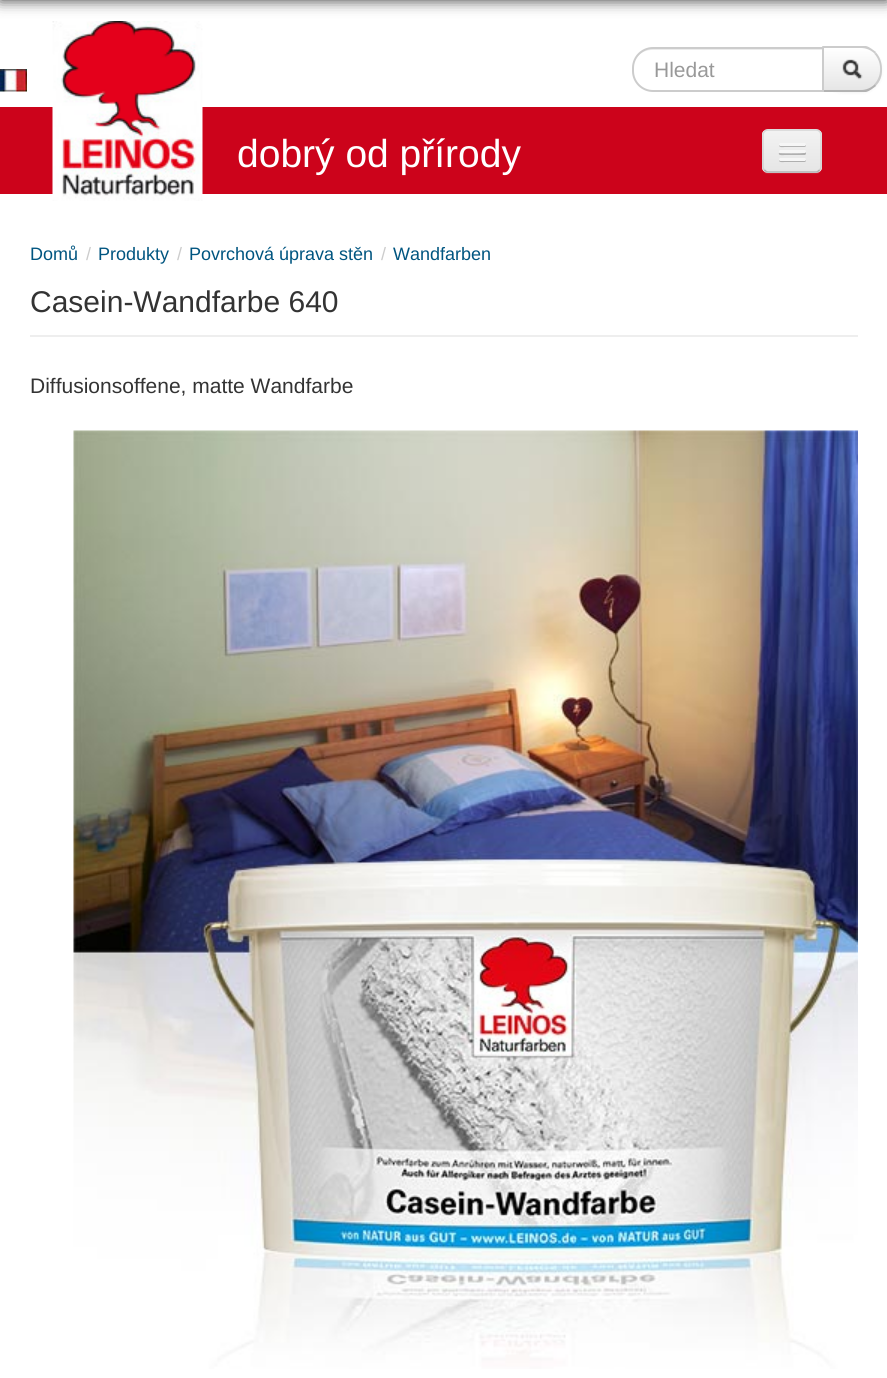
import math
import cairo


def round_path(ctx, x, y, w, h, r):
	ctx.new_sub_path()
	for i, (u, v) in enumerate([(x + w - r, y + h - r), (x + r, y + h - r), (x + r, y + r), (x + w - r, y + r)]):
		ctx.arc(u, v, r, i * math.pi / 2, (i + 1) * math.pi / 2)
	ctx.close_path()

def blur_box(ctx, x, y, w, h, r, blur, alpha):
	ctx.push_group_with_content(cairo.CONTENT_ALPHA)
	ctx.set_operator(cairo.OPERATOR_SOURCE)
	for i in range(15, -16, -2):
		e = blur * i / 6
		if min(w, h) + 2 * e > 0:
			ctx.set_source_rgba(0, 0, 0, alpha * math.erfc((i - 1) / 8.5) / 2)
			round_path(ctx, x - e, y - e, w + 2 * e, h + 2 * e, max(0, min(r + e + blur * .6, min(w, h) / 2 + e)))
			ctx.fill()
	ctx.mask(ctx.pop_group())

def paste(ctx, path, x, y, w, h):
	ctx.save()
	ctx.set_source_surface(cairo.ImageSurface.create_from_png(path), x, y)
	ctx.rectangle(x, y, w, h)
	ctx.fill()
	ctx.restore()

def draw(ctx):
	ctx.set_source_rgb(1, 1, 1)
	ctx.paint()
	ctx.set_source_rgb(0.8, 0.012, 0.106)
	ctx.rectangle(0, 107, 887, 87)
	ctx.fill()
	paste(ctx, 'media/1.png', 52, 21, 151, 180)
	ctx.set_source_rgb(0, 0, 0)
	blur_box(ctx, 0, -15, 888, 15, 0, 7.5, 0.8)
	ctx.set_source_rgb(0.816, 0.086, 0.173)
	ctx.new_path()
	ctx.move_to(762, 166)
	ctx.curve_to(762, 176, 769, 174, 776, 174)
	ctx.line_to(808, 174)
	ctx.curve_to(815, 174, 822, 176, 822, 166)
	ctx.curve_to(822, 170, 819, 172, 816, 172)
	ctx.line_to(768, 172)
	ctx.curve_to(765, 172, 762, 170, 762, 166)
	ctx.close_path()
	ctx.fill()
	ctx.set_source_rgb(0.929, 0.929, 0.929)
	round_path(ctx, 762, 129, 60, 44, 6)
	ctx.fill()
	ctx.save()
	round_path(ctx, 762, 129, 60, 44, 6)
	ctx.clip()
	gradient = cairo.LinearGradient(792, 131, 792, 171)
	gradient.add_color_stop_rgba(0, 0.949, 0.949, 0.949, 1)
	gradient.add_color_stop_rgba(1, 0.902, 0.902, 0.902, 1)
	ctx.set_source(gradient)
	ctx.rectangle(762, 131, 60, 40)
	ctx.fill()
	ctx.restore()
	ctx.new_path()
	ctx.move_to(819.5, 170)
	ctx.curve_to(818.5, 171, 817.5, 172, 816, 172)
	ctx.line_to(768, 172)
	ctx.curve_to(766.5, 172, 765.5, 171, 764.5, 170)
	ctx.set_source_rgba(0, 0, 0, 0.25)
	ctx.set_line_width(1.5)
	ctx.stroke()
	ctx.new_path()
	ctx.move_to(764.5, 170)
	ctx.curve_to(763.5, 169, 763, 168, 763, 166.5)
	ctx.line_to(763, 135)
	ctx.curve_to(763, 133.5, 763.5, 132.5, 764.5, 131.5)
	ctx.curve_to(765.5, 130.5, 766.5, 130, 768, 130)
	ctx.line_to(816, 130)
	ctx.curve_to(817.5, 130, 818.5, 130.5, 819.5, 131.5)
	ctx.curve_to(820.5, 132.5, 821, 133.5, 821, 135)
	ctx.line_to(821, 166.5)
	ctx.curve_to(821, 168, 820.5, 169, 819.5, 170)
	ctx.set_source_rgba(0, 0, 0, 0.1)
	ctx.stroke()
	ctx.set_source_rgb(0.698, 0.698, 0.698)
	ctx.new_path()
	ctx.move_to(779, 145)
	ctx.curve_to(778.5, 148, 784, 147, 784.5, 147)
	ctx.line_to(804.5, 147)
	ctx.curve_to(806, 147, 806.5, 145, 805.5, 144.5)
	ctx.line_to(804.5, 145.5)
	ctx.curve_to(803, 146, 779.5, 145.5, 779, 145)
	ctx.close_path()
	ctx.fill()
	ctx.set_source_rgb(0.961, 0.961, 0.961)
	round_path(ctx, 779, 143, 27, 3, 1.5)
	ctx.fill()
	ctx.set_source_rgb(0.69, 0.69, 0.69)
	ctx.new_path()
	ctx.move_to(779, 153)
	ctx.curve_to(777.5, 156, 784.5, 155, 784.5, 155)
	ctx.line_to(805, 155)
	ctx.curve_to(806, 154.5, 806.5, 153, 805.5, 152)
	ctx.line_to(804, 153)
	ctx.curve_to(802, 153.5, 780, 153.5, 779, 153)
	ctx.close_path()
	ctx.fill()
	ctx.set_source_rgb(0.961, 0.961, 0.961)
	round_path(ctx, 779, 150, 27, 3, 1.5)
	ctx.fill()
	ctx.set_source_rgb(0.686, 0.686, 0.686)
	ctx.new_path()
	ctx.move_to(779, 160)
	ctx.curve_to(778.5, 163, 784, 162, 784.5, 162)
	ctx.line_to(804.5, 162)
	ctx.curve_to(806, 162, 806.5, 160, 805.5, 159.5)
	ctx.line_to(804.5, 160.5)
	ctx.curve_to(803, 161, 779.5, 160.5, 779, 160)
	ctx.close_path()
	ctx.fill()
	ctx.set_source_rgb(0.961, 0.961, 0.961)
	round_path(ctx, 779, 158, 27, 3, 1.5)
	ctx.fill()
	paste(ctx, 'media/2.png', 0, 69, 27, 23)
	ctx.set_source_rgb(0, 0, 0)
	blur_box(ctx, 822, 48, 60, 45, 21, 1.5, 0.05)
	ctx.save()
	ctx.new_path()
	ctx.move_to(822, 47)
	ctx.line_to(861, 47)
	ctx.curve_to(872.5, 47, 882, 56.5, 882, 68)
	ctx.line_to(882, 71)
	ctx.curve_to(882, 82.5, 872.5, 92, 861, 92)
	ctx.line_to(822, 92)
	ctx.close_path()
	ctx.clip()
	gradient = cairo.LinearGradient(852, 48, 852, 90)
	gradient.add_color_stop_rgba(0, 1, 1, 1, 1)
	gradient.add_color_stop_rgba(1, 0.902, 0.902, 0.902, 1)
	ctx.set_source(gradient)
	ctx.rectangle(824, 48, 58, 42)
	ctx.fill()
	ctx.restore()
	ctx.set_source_rgb(0.8, 0.8, 0.8)
	ctx.new_path()
	ctx.move_to(824, 48)
	ctx.line_to(822, 46)
	ctx.line_to(866, 46)
	ctx.curve_to(870, 47, 873, 50, 876, 52)
	ctx.line_to(875, 54)
	ctx.curve_to(871, 50, 866, 48, 861, 48)
	ctx.close_path()
	ctx.fill()
	ctx.new_path()
	ctx.move_to(882, 70)
	ctx.curve_to(882, 63.5, 880.5, 57.5, 876, 52.5)
	ctx.line_to(874.5, 54)
	ctx.curve_to(882, 62, 882, 76, 874.5, 84)
	ctx.line_to(876, 85.5)
	ctx.curve_to(880, 81.5, 882, 76, 882, 70)
	ctx.close_path()
	ctx.fill()
	ctx.set_source_rgb(0.702, 0.702, 0.702)
	ctx.new_path()
	ctx.move_to(866, 92)
	ctx.line_to(822, 92)
	ctx.line_to(824, 90)
	ctx.line_to(861, 90)
	ctx.curve_to(866, 90, 871, 88, 875, 84)
	ctx.line_to(876, 86)
	ctx.curve_to(873, 88, 870, 91, 866, 92)
	ctx.close_path()
	ctx.fill()
	ctx.set_source_rgb(0.8, 0.8, 0.8)
	ctx.new_path()
	ctx.move_to(822, 92)
	ctx.line_to(824, 90)
	ctx.line_to(824, 48)
	ctx.line_to(822, 46)
	ctx.close_path()
	ctx.fill()
	ctx.set_source_rgb(1, 1, 1)
	ctx.new_path()
	ctx.move_to(653, 47)
	ctx.line_to(824, 47)
	ctx.line_to(824, 92)
	ctx.line_to(653, 92)
	ctx.curve_to(641.5, 92, 632, 82.5, 632, 71)
	ctx.line_to(632, 68)
	ctx.curve_to(632, 56.5, 641.5, 47, 653, 47)
	ctx.close_path()
	ctx.fill()
	ctx.set_source_rgb(0.925, 0.925, 0.925)
	ctx.new_path()
	ctx.move_to(652, 50)
	ctx.line_to(822, 50)
	ctx.line_to(822, 48)
	ctx.line_to(653, 48)
	ctx.curve_to(642, 48, 633, 57, 633, 68)
	ctx.line_to(633, 69)
	ctx.curve_to(633, 58, 642, 50, 652, 50)
	ctx.close_path()
	ctx.fill()
	ctx.new_path()
	ctx.move_to(653, 48)
	ctx.line_to(823, 48)
	ctx.line_to(823, 91)
	ctx.line_to(653, 91)
	ctx.curve_to(642, 91, 633, 82, 633, 71)
	ctx.line_to(633, 68)
	ctx.curve_to(633, 57, 642, 48, 653, 48)
	ctx.close_path()
	ctx.set_source_rgb(0.8, 0.8, 0.8)
	ctx.set_line_width(2)
	ctx.stroke()
	ctx.select_font_face('Liberation Sans')
	ctx.set_font_size(21)
	ctx.set_source_rgb(0.6, 0.6, 0.6)
	ctx.move_to(654, 77)
	ctx.show_text('Hledat')
	paste(ctx, 'media/3.png', 842, 59, 21, 21)
	ctx.set_font_size(39)
	ctx.set_source_rgb(1, 1, 1)
	ctx.move_to(237, 167)
	ctx.show_text('dobrý od přírody')
	ctx.set_font_size(18)
	ctx.set_source_rgb(0, 0.333, 0.502)
	ctx.move_to(30, 260)
	ctx.show_text('Domů')
	ctx.set_source_rgb(0.8, 0.8, 0.8)
	ctx.move_to(86, 260)
	ctx.show_text('/')
	ctx.set_source_rgb(0, 0.333, 0.502)
	ctx.move_to(98, 260)
	ctx.show_text('Produkty')
	ctx.set_source_rgb(0.8, 0.8, 0.8)
	ctx.move_to(177, 260)
	ctx.show_text('/')
	ctx.set_source_rgb(0, 0.333, 0.502)
	ctx.move_to(189, 260)
	ctx.show_text('Povrchová úprava stěn')
	ctx.set_source_rgb(0.8, 0.8, 0.8)
	ctx.move_to(381, 260)
	ctx.show_text('/')
	ctx.set_source_rgb(0, 0.333, 0.502)
	ctx.move_to(393, 260)
	ctx.show_text('Wandfarben')
	ctx.set_source_rgb(0.933, 0.933, 0.933)
	ctx.rectangle(30, 335, 828, 2)
	ctx.fill()
	ctx.set_font_size(30)
	ctx.set_source_rgb(0.2, 0.2, 0.2)
	ctx.move_to(30, 312)
	ctx.show_text('Casein-Wandfarbe 640')
	ctx.set_font_size(21)
	ctx.move_to(30, 393)
	ctx.show_text('Diffusionsoffene, matte Wandfarbe')
	paste(ctx, 'media/4.png', 73, 430, 785, 939)


surface = cairo.ImageSurface(cairo.FORMAT_RGB24, 887, 1378)
ctx = cairo.Context(surface)
options = cairo.FontOptions()
options.set_hint_metrics(cairo.HINT_METRICS_OFF)
options.set_hint_style(cairo.HINT_STYLE_NONE)
ctx.set_font_options(options)
ctx.set_miter_limit(4)
draw(ctx)
surface.write_to_png('image.png')
